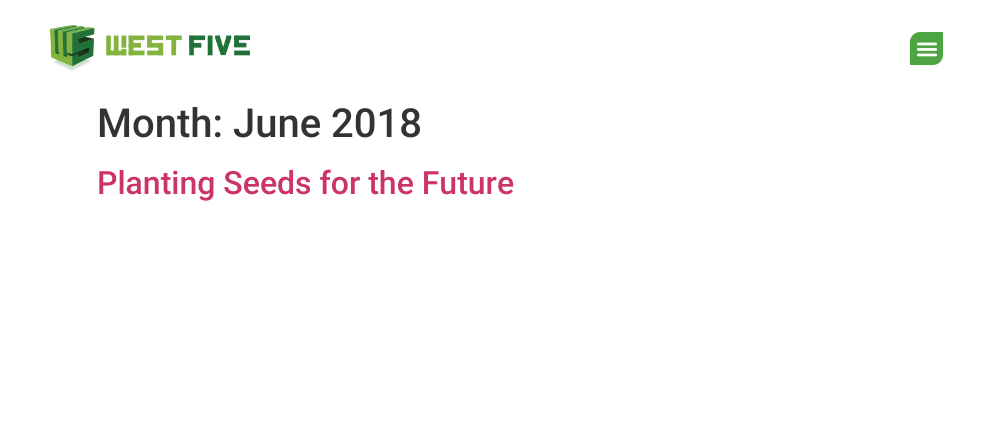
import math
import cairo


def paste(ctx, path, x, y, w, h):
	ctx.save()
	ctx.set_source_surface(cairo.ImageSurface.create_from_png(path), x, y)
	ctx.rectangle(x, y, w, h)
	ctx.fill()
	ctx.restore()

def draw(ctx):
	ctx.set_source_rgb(1, 1, 1)
	ctx.paint()
	paste(ctx, 'media/1.png', 50, 25, 200, 47)
	ctx.set_source_rgb(0.298, 0.647, 0.251)
	ctx.new_path()
	ctx.move_to(920, 32)
	ctx.line_to(943, 32)
	ctx.line_to(943, 55)
	ctx.curve_to(943, 60.5, 938.5, 65, 933, 65)
	ctx.line_to(910, 65)
	ctx.line_to(910, 42)
	ctx.curve_to(910, 36.5, 914.5, 32, 920, 32)
	ctx.close_path()
	ctx.fill()
	paste(ctx, 'media/2.png', 916, 42, 22, 15)
	ctx.select_font_face('Roboto Medium')
	ctx.set_font_size(40)
	ctx.set_source_rgb(0.2, 0.2, 0.2)
	ctx.move_to(97, 137)
	ctx.show_text('Month: June 2018')
	ctx.set_font_size(32)
	ctx.set_source_rgb(0.8, 0.2, 0.4)
	ctx.move_to(97, 194)
	ctx.show_text('Planting Seeds for the Future')


surface = cairo.ImageSurface(cairo.FORMAT_RGB24, 993, 426)
ctx = cairo.Context(surface)
options = cairo.FontOptions()
options.set_hint_metrics(cairo.HINT_METRICS_OFF)
options.set_hint_style(cairo.HINT_STYLE_NONE)
ctx.set_font_options(options)
ctx.set_miter_limit(4)
draw(ctx)
surface.write_to_png('image.png')
